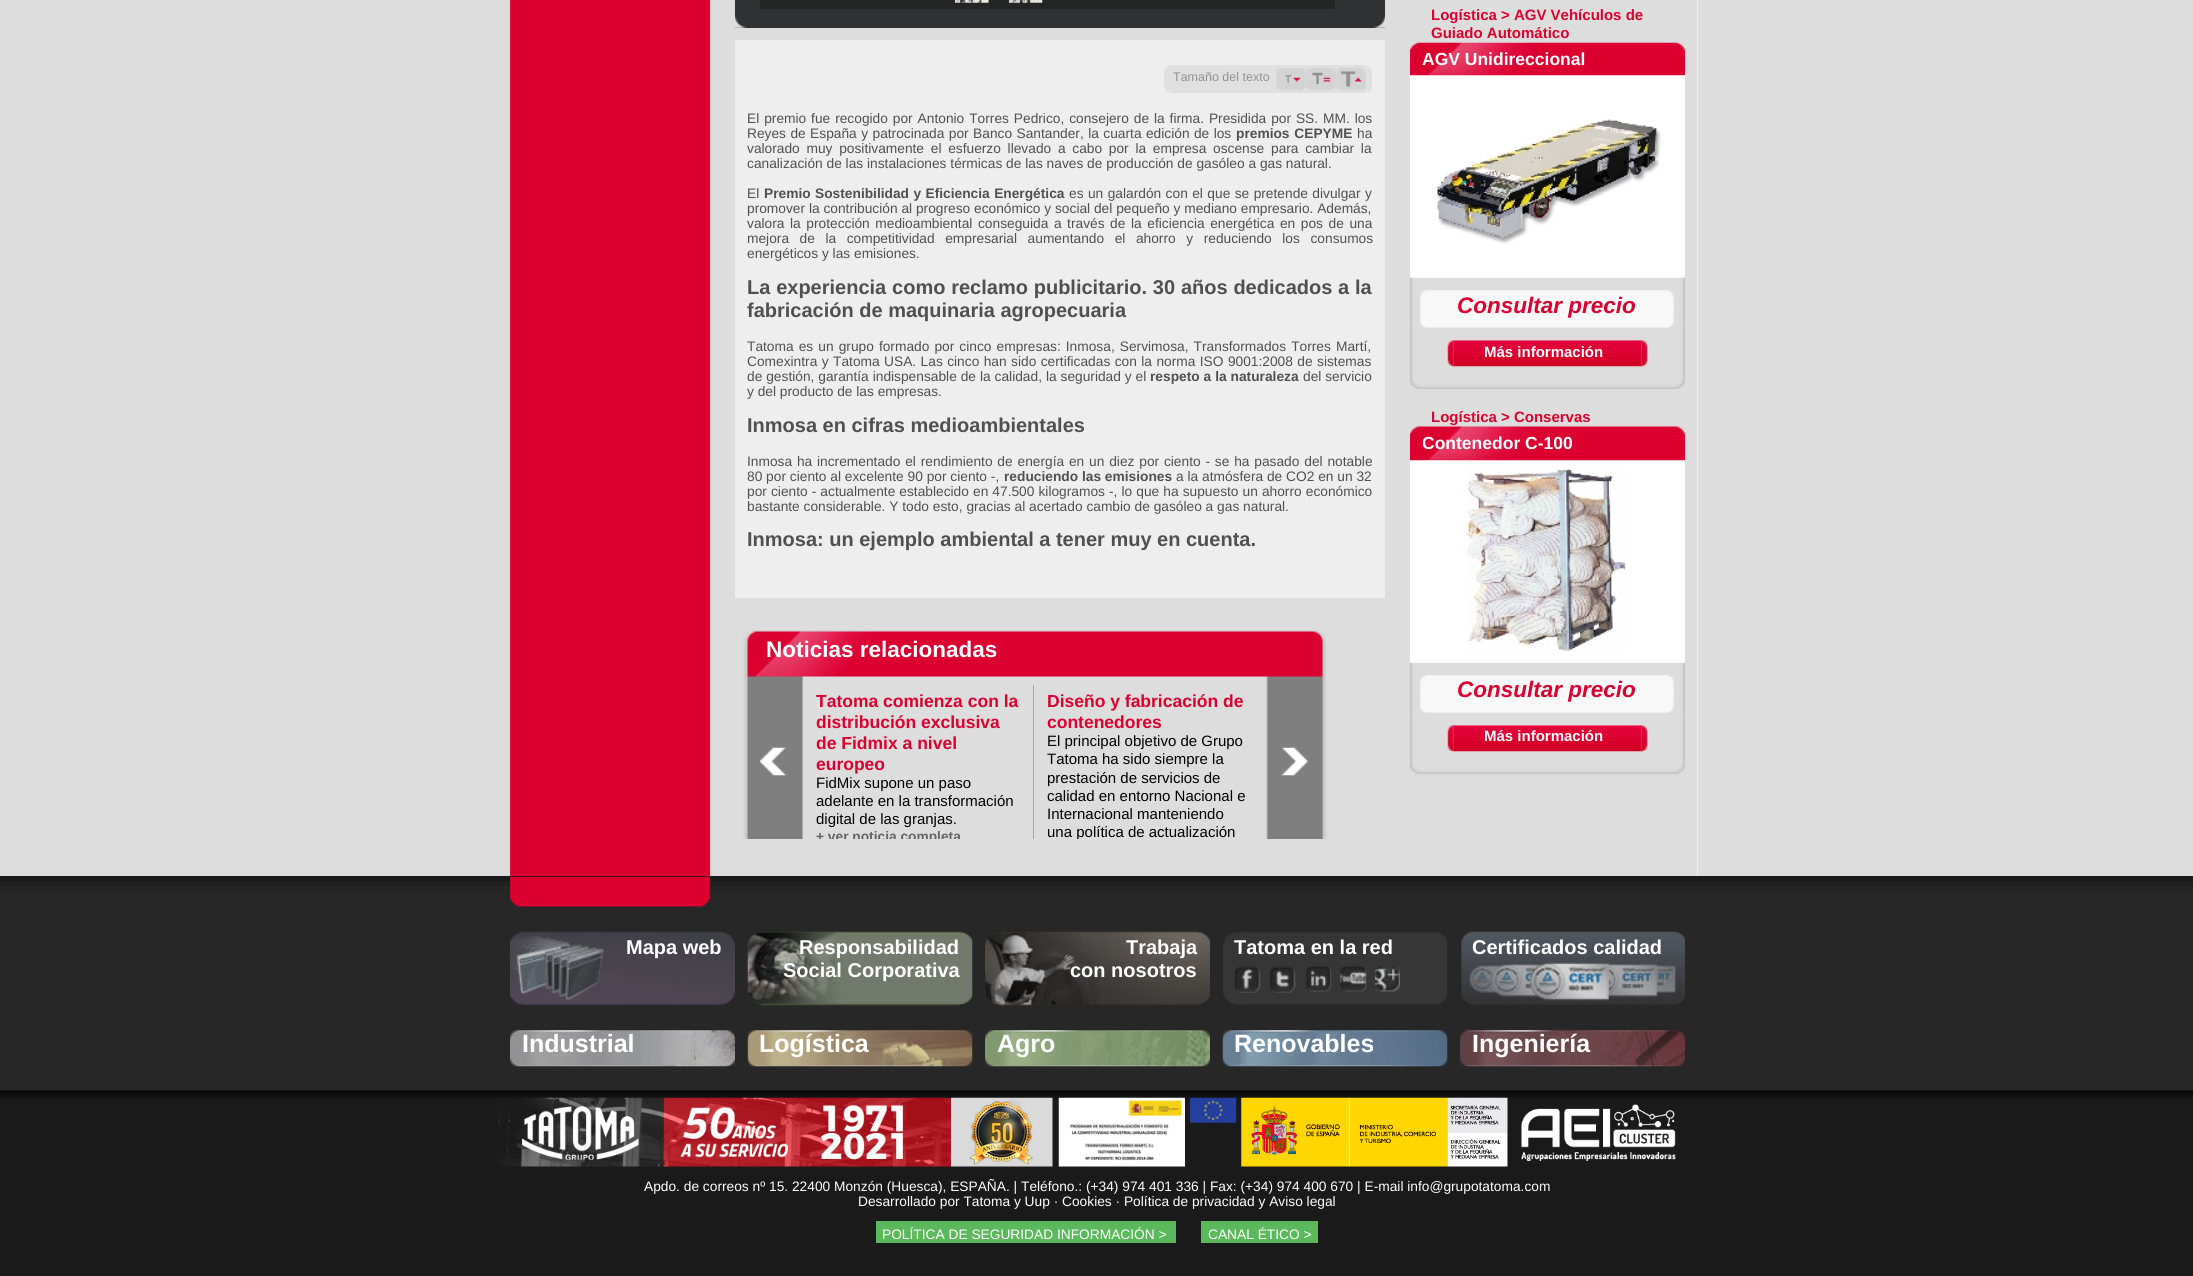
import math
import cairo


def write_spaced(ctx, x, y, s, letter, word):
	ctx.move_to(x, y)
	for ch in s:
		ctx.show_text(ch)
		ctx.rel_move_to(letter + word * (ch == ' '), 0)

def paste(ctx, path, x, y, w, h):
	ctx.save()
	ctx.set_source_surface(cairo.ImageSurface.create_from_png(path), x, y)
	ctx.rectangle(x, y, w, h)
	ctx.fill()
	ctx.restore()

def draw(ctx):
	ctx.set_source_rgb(0.867, 0.867, 0.867)
	ctx.paint()
	ctx.set_source_rgb(1, 1, 1)
	ctx.rectangle(1697, 0, 1, 876)
	ctx.fill()
	paste(ctx, 'media/1.png', 497, 0, 1201, 876)
	ctx.set_source_rgb(0.188, 0.192, 0.196)
	ctx.rectangle(735, 0, 650, 28)
	ctx.fill()
	ctx.set_source_rgb(0.141, 0.145, 0.145)
	ctx.rectangle(760, 0, 575, 9)
	ctx.fill()
	paste(ctx, 'media/2.png', 955, 0, 34, 3)
	paste(ctx, 'media/3.png', 1008, 0, 35, 3)
	paste(ctx, 'media/4.png', 735, 15, 650, 13)
	ctx.set_source_rgb(0.933, 0.933, 0.933)
	ctx.rectangle(735, 40, 650, 558)
	ctx.fill()
	paste(ctx, 'media/5.png', 1164, 65, 6, 27)
	ctx.set_source_rgb(0.878, 0.878, 0.878)
	ctx.rectangle(1170, 65, 196, 28)
	ctx.fill()
	ctx.select_font_face('Liberation Sans')
	ctx.set_font_size(12.5)
	ctx.set_source_rgb(0.569, 0.569, 0.569)
	ctx.move_to(1173, 81)
	ctx.show_text('Tamaño del texto')
	paste(ctx, 'media/6.png', 1276, 68, 31, 23)
	paste(ctx, 'media/7.png', 1306, 67, 31, 24)
	paste(ctx, 'media/8.png', 1336, 67, 30, 24)
	paste(ctx, 'media/9.png', 1366, 65, 6, 28)
	ctx.set_font_size(13.75)
	ctx.set_source_rgb(0.314, 0.314, 0.314)
	write_spaced(ctx, 747, 123, 'El premio fue recogido por Antonio Torres Pedrico, consejero de la firma. Presidida por SS. MM. los', 0, 1.1)
	write_spaced(ctx, 747, 138, 'Reyes de España y patrocinada por Banco Santander, la cuarta edición de los', 0, 0.6)
	ctx.select_font_face('Liberation Sans', cairo.FONT_SLANT_NORMAL, cairo.FONT_WEIGHT_BOLD)
	write_spaced(ctx, 1236, 138, 'premios CEPYME', 0, 1)
	ctx.select_font_face('Liberation Sans')
	ctx.move_to(1357, 138)
	ctx.show_text('ha')
	write_spaced(ctx, 747, 153, 'valorado muy positivamente el esfuerzo llevado a cabo por la empresa oscense para cambiar la', 0, 2.9)
	ctx.move_to(747, 168)
	ctx.show_text('canalización de las instalaciones térmicas de las naves de producción de gasóleo a gas natural.')
	ctx.move_to(747, 198)
	ctx.show_text('El')
	ctx.select_font_face('Liberation Sans', cairo.FONT_SLANT_NORMAL, cairo.FONT_WEIGHT_BOLD)
	write_spaced(ctx, 764, 198, 'Premio Sostenibilidad y Eficiencia Energética', 0, 0.6)
	ctx.select_font_face('Liberation Sans')
	write_spaced(ctx, 1069, 198, 'es un galardón con el que se pretende divulgar y', 0, 0.6)
	ctx.move_to(747, 213)
	ctx.show_text('promover la contribución al progreso económico y social del pequeño y mediano empresario. Además,')
	write_spaced(ctx, 747, 228, 'valora la protección medioambiental conseguida a través de la eficiencia energética en pos de una', 0, 1.75)
	write_spaced(ctx, 747, 243, 'mejora de la competitividad empresarial aumentando el ahorro y reduciendo los consumos', 0, 6.75)
	ctx.move_to(747, 258)
	ctx.show_text('energéticos y las emisiones.')
	ctx.select_font_face('Liberation Sans', cairo.FONT_SLANT_NORMAL, cairo.FONT_WEIGHT_BOLD)
	ctx.set_font_size(20)
	write_spaced(ctx, 747, 294, 'La experiencia como reclamo publicitario. 30 años dedicados a la', 0, 0.25)
	ctx.move_to(747, 317)
	ctx.show_text('fabricación de maquinaria agropecuaria')
	ctx.select_font_face('Liberation Sans')
	ctx.set_font_size(13.75)
	write_spaced(ctx, 747, 351, 'Tatoma es un grupo formado por cinco empresas: Inmosa, Servimosa, Transformados Torres Martí,', 0, 1.25)
	write_spaced(ctx, 747, 366, 'Comexintra y Tatoma USA. Las cinco han sido certificadas con la norma ISO 9001:2008 de sistemas', 0, 0.6)
	write_spaced(ctx, 747, 381, 'de gestión, garantía indispensable de la calidad, la seguridad y el', 0, 0.1)
	ctx.select_font_face('Liberation Sans', cairo.FONT_SLANT_NORMAL, cairo.FONT_WEIGHT_BOLD)
	write_spaced(ctx, 1150, 381, 'respeto a la naturaleza', 0, 0.1)
	ctx.select_font_face('Liberation Sans')
	ctx.move_to(1303, 381)
	ctx.show_text('del servicio')
	ctx.move_to(747, 396)
	ctx.show_text('y del producto de las empresas.')
	ctx.select_font_face('Liberation Sans', cairo.FONT_SLANT_NORMAL, cairo.FONT_WEIGHT_BOLD)
	ctx.set_font_size(20)
	ctx.move_to(747, 432)
	ctx.show_text('Inmosa en cifras medioambientales')
	ctx.select_font_face('Liberation Sans')
	ctx.set_font_size(13.75)
	write_spaced(ctx, 747, 466, 'Inmosa ha incrementado el rendimiento de energía en un diez por ciento - se ha pasado del notable', 0, 1)
	ctx.move_to(747, 481)
	ctx.show_text('80 por ciento al excelente 90 por ciento -,')
	ctx.select_font_face('Liberation Sans', cairo.FONT_SLANT_NORMAL, cairo.FONT_WEIGHT_BOLD)
	ctx.move_to(1004, 481)
	ctx.show_text('reduciendo las emisiones')
	ctx.select_font_face('Liberation Sans')
	ctx.move_to(1176, 481)
	ctx.show_text('a la atmósfera de CO2 en un 32')
	write_spaced(ctx, 747, 496, 'por ciento - actualmente establecido en 47.500 kilogramos -, lo que ha supuesto un ahorro económico', 0, 0.25)
	ctx.move_to(747, 511)
	ctx.show_text('bastante considerable. Y todo esto, gracias al acertado cambio de gasóleo a gas natural.')
	ctx.select_font_face('Liberation Sans', cairo.FONT_SLANT_NORMAL, cairo.FONT_WEIGHT_BOLD)
	ctx.set_font_size(20)
	ctx.move_to(747, 546)
	ctx.show_text('Inmosa: un ejemplo ambiental a tener muy en cuenta.')
	paste(ctx, 'media/10.png', 743, 630, 584, 209)
	ctx.set_font_size(22.5)
	ctx.set_source_rgb(1, 1, 1)
	ctx.move_to(766, 657)
	ctx.show_text('Noticias relacionadas')
	ctx.set_font_size(17.5)
	ctx.set_source_rgb(0.859, 0, 0.184)
	for x, y, s in [
		(816, 707, 'Tatoma comienza con la'),
		(816, 728, 'distribución exclusiva'),
		(816, 749, 'de Fidmix a nivel'),
		(816, 770, 'europeo'),
	]:
		ctx.move_to(x, y)
		ctx.show_text(s)
	ctx.select_font_face('Liberation Sans')
	ctx.set_font_size(15)
	ctx.set_source_rgb(0, 0, 0)
	for x, y, s in [
		(816, 788, 'FidMix supone un paso'),
		(816, 806, 'adelante en la transformación'),
		(816, 824, 'digital de las granjas.'),
	]:
		ctx.move_to(x, y)
		ctx.show_text(s)
	ctx.save()
	ctx.rectangle(804, 685, 229, 154)
	ctx.clip()
	ctx.select_font_face('Liberation Sans', cairo.FONT_SLANT_NORMAL, cairo.FONT_WEIGHT_BOLD)
	ctx.set_font_size(13.75)
	ctx.set_source_rgb(0.392, 0.392, 0.392)
	ctx.move_to(816, 841)
	ctx.show_text('+ ver noticia completa')
	ctx.restore()
	ctx.set_source_rgb(0.647, 0.647, 0.647)
	ctx.rectangle(1033, 685, 1, 154)
	ctx.fill()
	ctx.select_font_face('Liberation Sans', cairo.FONT_SLANT_NORMAL, cairo.FONT_WEIGHT_BOLD)
	ctx.set_font_size(17.5)
	ctx.set_source_rgb(0.859, 0, 0.184)
	ctx.move_to(1047, 707)
	ctx.show_text('Diseño y fabricación de')
	ctx.move_to(1047, 728)
	ctx.show_text('contenedores')
	ctx.select_font_face('Liberation Sans')
	ctx.set_font_size(15)
	ctx.set_source_rgb(0, 0, 0)
	for x, y, s in [
		(1047, 746, 'El principal objetivo de Grupo'),
		(1047, 764, 'Tatoma ha sido siempre la'),
		(1047, 783, 'prestación de servicios de'),
		(1047, 801, 'calidad en entorno Nacional e'),
		(1047, 819, 'Internacional manteniendo'),
	]:
		ctx.move_to(x, y)
		ctx.show_text(s)
	ctx.save()
	ctx.rectangle(1035, 685, 229, 154)
	ctx.clip()
	ctx.move_to(1047, 837)
	ctx.show_text('una política de actualización')
	ctx.restore()
	paste(ctx, 'media/11.png', 760, 747, 27, 29)
	paste(ctx, 'media/12.png', 1281, 747, 27, 29)
	ctx.select_font_face('Liberation Sans', cairo.FONT_SLANT_NORMAL, cairo.FONT_WEIGHT_BOLD)
	ctx.set_source_rgb(0.859, 0, 0.184)
	ctx.move_to(1431, 20)
	ctx.show_text('Logística > AGV Vehículos de')
	ctx.move_to(1431, 38)
	ctx.show_text('Guiado Automático')
	ctx.set_source_rgb(1, 1, 1)
	ctx.rectangle(1410, 75, 275, 203)
	ctx.fill()
	paste(ctx, 'media/13.png', 1410, 42, 275, 34)
	ctx.set_font_size(17.5)
	ctx.move_to(1422, 65)
	ctx.show_text('AGV Unidireccional')
	paste(ctx, 'media/14.png', 1437, 119, 224, 125)
	paste(ctx, 'media/15.png', 1410, 277, 275, 51)
	paste(ctx, 'media/16.png', 1420, 290, 254, 38)
	ctx.select_font_face('Liberation Sans', cairo.FONT_SLANT_ITALIC, cairo.FONT_WEIGHT_BOLD)
	ctx.set_font_size(22.5)
	ctx.set_source_rgb(0.859, 0, 0.184)
	ctx.move_to(1457, 313)
	ctx.show_text('Consultar precio')
	paste(ctx, 'media/17.png', 1410, 328, 275, 51)
	paste(ctx, 'media/18.png', 1447, 340, 7, 27)
	paste(ctx, 'media/19.png', 1453, 340, 189, 27)
	ctx.select_font_face('Liberation Sans', cairo.FONT_SLANT_NORMAL, cairo.FONT_WEIGHT_BOLD)
	ctx.set_font_size(15)
	ctx.set_source_rgb(1, 1, 1)
	ctx.move_to(1484, 357)
	ctx.show_text('Más información')
	paste(ctx, 'media/20.png', 1641, 340, 7, 27)
	paste(ctx, 'media/21.png', 1410, 379, 275, 10)
	ctx.set_source_rgb(0.859, 0, 0.184)
	ctx.move_to(1431, 422)
	ctx.show_text('Logística > Conservas')
	ctx.set_source_rgb(1, 1, 1)
	ctx.rectangle(1410, 460, 275, 203)
	ctx.fill()
	paste(ctx, 'media/22.png', 1410, 426, 275, 35)
	ctx.save()
	ctx.rectangle(1423, 433, 250, 21)
	ctx.clip()
	ctx.set_font_size(17.5)
	ctx.move_to(1422, 449)
	ctx.show_text('Contenedor C-100')
	ctx.restore()
	paste(ctx, 'media/23.png', 1466, 468, 160, 184)
	paste(ctx, 'media/15.png', 1410, 662, 275, 51)
	paste(ctx, 'media/24.png', 1420, 675, 254, 38)
	ctx.select_font_face('Liberation Sans', cairo.FONT_SLANT_ITALIC, cairo.FONT_WEIGHT_BOLD)
	ctx.set_font_size(22.5)
	ctx.set_source_rgb(0.859, 0, 0.184)
	ctx.move_to(1457, 697)
	ctx.show_text('Consultar precio')
	paste(ctx, 'media/17.png', 1410, 713, 275, 51)
	paste(ctx, 'media/18.png', 1447, 725, 7, 27)
	paste(ctx, 'media/19.png', 1453, 725, 189, 27)
	ctx.select_font_face('Liberation Sans', cairo.FONT_SLANT_NORMAL, cairo.FONT_WEIGHT_BOLD)
	ctx.set_font_size(15)
	ctx.set_source_rgb(1, 1, 1)
	ctx.move_to(1484, 741)
	ctx.show_text('Más información')
	paste(ctx, 'media/20.png', 1641, 725, 7, 27)
	paste(ctx, 'media/21.png', 1410, 764, 275, 10)
	ctx.set_source_rgb(0.102, 0.102, 0.102)
	ctx.rectangle(0, 876, 2193, 400)
	ctx.fill()
	paste(ctx, 'media/25.png', 0, 881, 2193, 218)
	paste(ctx, 'media/26.png', 510, 876, 201, 31)
	paste(ctx, 'media/27.png', 510, 931, 225, 75)
	ctx.set_font_size(20)
	ctx.set_source_rgb(1, 1, 1)
	ctx.move_to(626, 954)
	ctx.show_text('Mapa web')
	paste(ctx, 'media/28.png', 510, 1030, 225, 37)
	ctx.set_font_size(25)
	ctx.move_to(522, 1052)
	ctx.show_text('Industrial')
	paste(ctx, 'media/29.png', 747, 931, 226, 75)
	ctx.set_font_size(20)
	ctx.move_to(799, 954)
	ctx.show_text('Responsabilidad')
	ctx.move_to(783, 977)
	ctx.show_text('Social Corporativa')
	paste(ctx, 'media/30.png', 747, 1030, 226, 37)
	ctx.set_font_size(25)
	ctx.move_to(759, 1052)
	ctx.show_text('Logística')
	paste(ctx, 'media/31.png', 985, 931, 225, 75)
	ctx.set_font_size(20)
	ctx.move_to(1126, 954)
	ctx.show_text('Trabaja')
	ctx.move_to(1070, 977)
	ctx.show_text('con nosotros')
	paste(ctx, 'media/32.png', 985, 1030, 225, 37)
	ctx.set_font_size(25)
	ctx.move_to(997, 1052)
	ctx.show_text('Agro')
	paste(ctx, 'media/33.png', 1223, 932, 224, 73)
	ctx.set_font_size(20)
	ctx.move_to(1234, 954)
	ctx.show_text('Tatoma en la red')
	paste(ctx, 'media/34.png', 1235, 966, 26, 27)
	paste(ctx, 'media/35.png', 1270, 966, 26, 27)
	paste(ctx, 'media/36.png', 1305, 966, 27, 26)
	paste(ctx, 'media/37.png', 1340, 966, 27, 27)
	paste(ctx, 'media/38.png', 1375, 966, 25, 26)
	paste(ctx, 'media/39.png', 1222, 1030, 226, 37)
	ctx.set_font_size(25)
	ctx.move_to(1234, 1052)
	ctx.show_text('Renovables')
	paste(ctx, 'media/40.png', 1460, 931, 225, 74)
	ctx.set_font_size(20)
	ctx.move_to(1472, 954)
	ctx.show_text('Certificados calidad')
	paste(ctx, 'media/41.png', 1460, 1030, 225, 37)
	ctx.set_font_size(25)
	ctx.move_to(1472, 1052)
	ctx.show_text('Ingeniería')
	paste(ctx, 'media/42.png', 498, 1097, 555, 70)
	paste(ctx, 'media/43.png', 1058, 1097, 127, 70)
	paste(ctx, 'media/44.png', 1190, 1097, 47, 26)
	paste(ctx, 'media/45.png', 1241, 1097, 267, 70)
	paste(ctx, 'media/46.png', 1521, 1104, 155, 57)
	ctx.select_font_face('Liberation Sans')
	ctx.set_font_size(13.75)
	ctx.move_to(644, 1191)
	ctx.show_text('Apdo. de correos nº 15. 22400 Monzón (Huesca), ESPAÑA. | Teléfono.: (+34) 974 401 336 | Fax: (+34) 974 400 670 | E-mail info@grupotatoma.com')
	ctx.move_to(858, 1206)
	ctx.show_text('Desarrollado por Tatoma y Uup · Cookies · Política de privacidad y Aviso legal')
	ctx.set_source_rgb(0.361, 0.722, 0.361)
	ctx.rectangle(876, 1221, 300, 22)
	ctx.fill()
	ctx.set_source_rgb(1, 1, 1)
	ctx.move_to(882, 1239)
	ctx.show_text('POLÍTICA DE SEGURIDAD INFORMACIÓN >')
	ctx.set_source_rgb(0.361, 0.722, 0.361)
	ctx.rectangle(1201, 1221, 117, 22)
	ctx.fill()
	ctx.set_source_rgb(1, 1, 1)
	ctx.move_to(1208, 1239)
	ctx.show_text('CANAL ÉTICO >')


surface = cairo.ImageSurface(cairo.FORMAT_RGB24, 2193, 1276)
ctx = cairo.Context(surface)
options = cairo.FontOptions()
options.set_hint_metrics(cairo.HINT_METRICS_OFF)
options.set_hint_style(cairo.HINT_STYLE_NONE)
ctx.set_font_options(options)
ctx.set_miter_limit(4)
draw(ctx)
surface.write_to_png('image.png')
